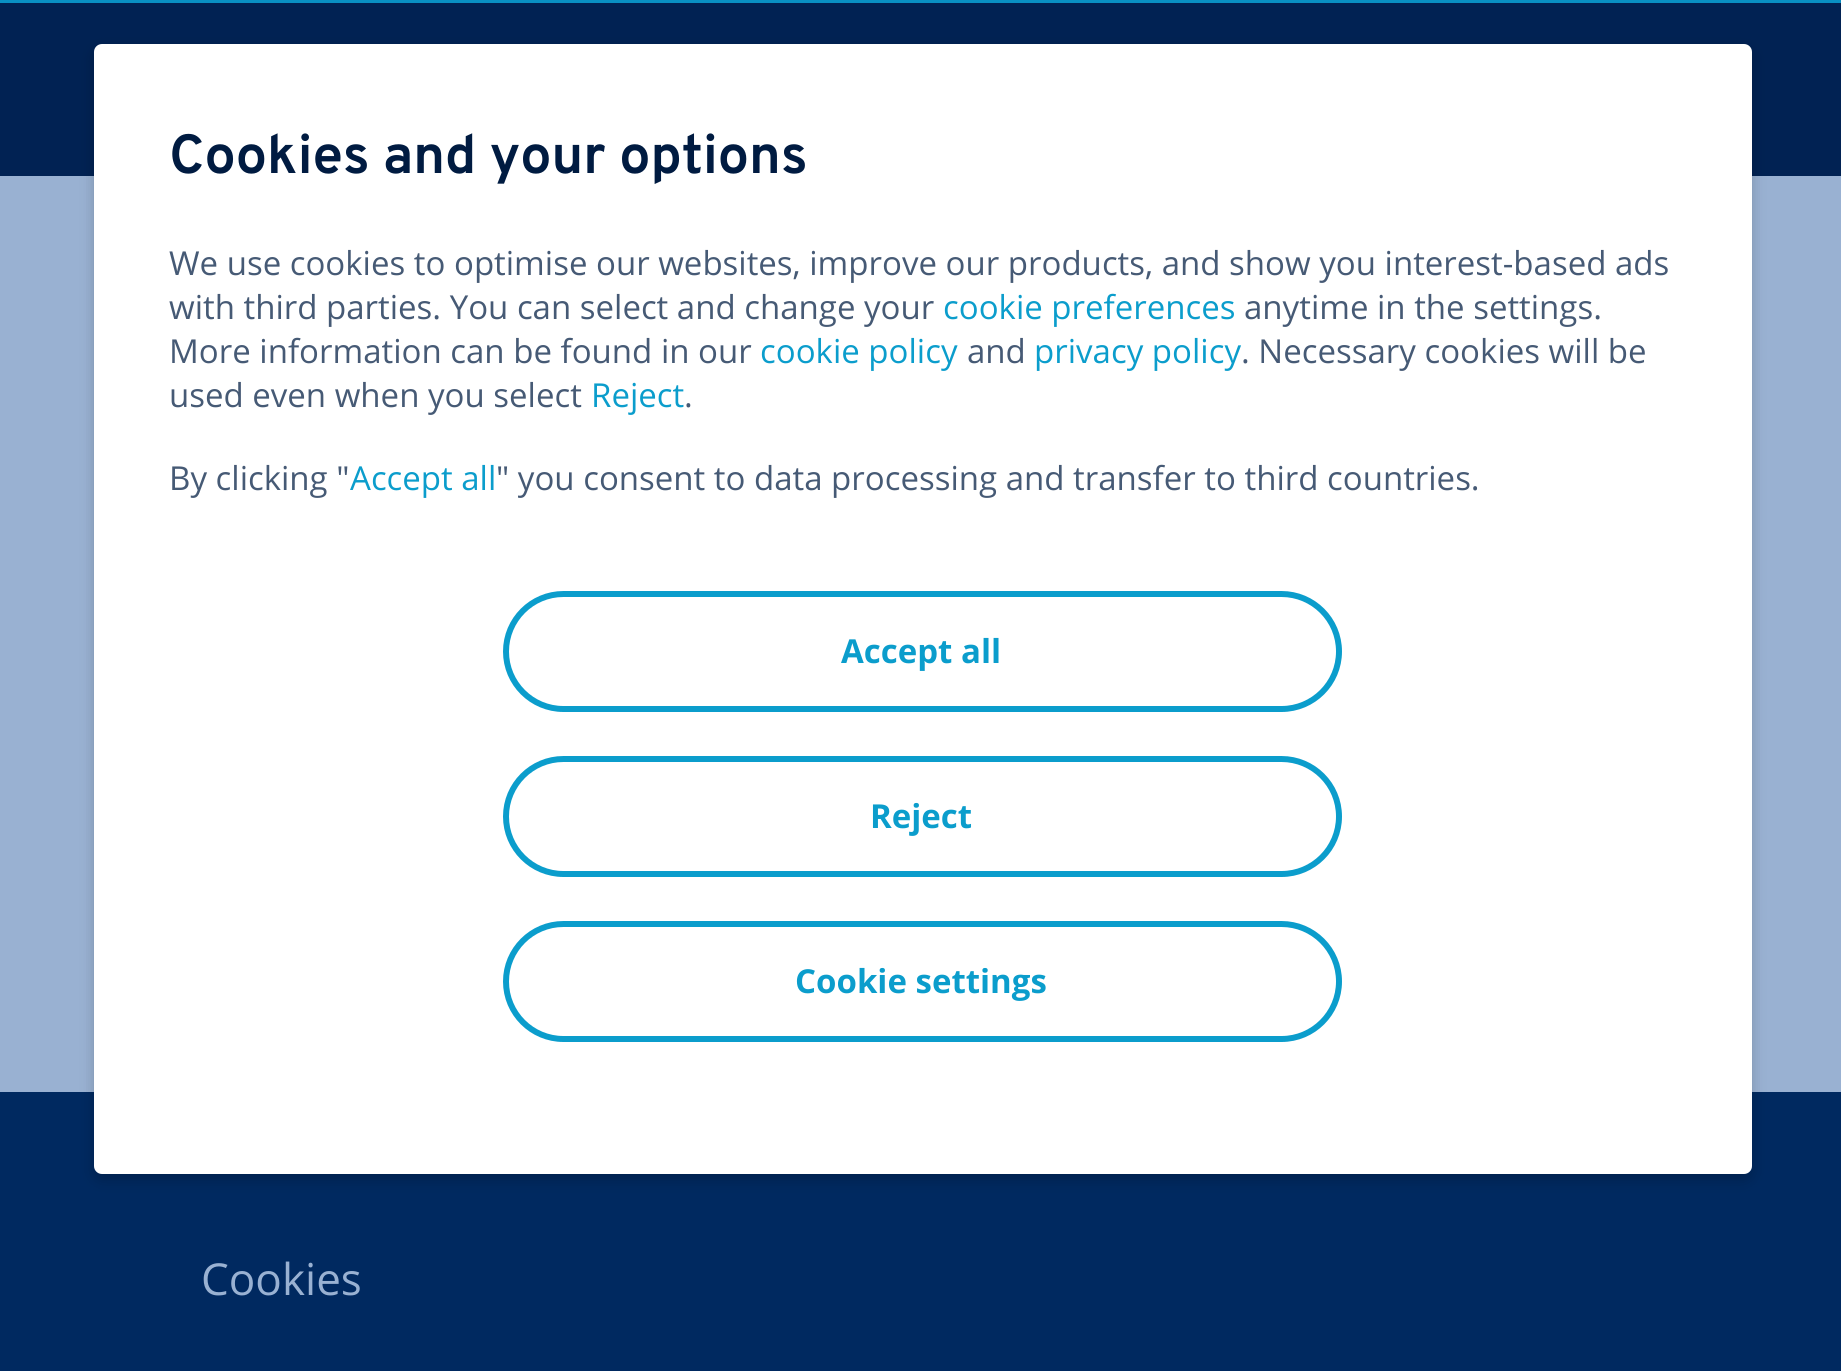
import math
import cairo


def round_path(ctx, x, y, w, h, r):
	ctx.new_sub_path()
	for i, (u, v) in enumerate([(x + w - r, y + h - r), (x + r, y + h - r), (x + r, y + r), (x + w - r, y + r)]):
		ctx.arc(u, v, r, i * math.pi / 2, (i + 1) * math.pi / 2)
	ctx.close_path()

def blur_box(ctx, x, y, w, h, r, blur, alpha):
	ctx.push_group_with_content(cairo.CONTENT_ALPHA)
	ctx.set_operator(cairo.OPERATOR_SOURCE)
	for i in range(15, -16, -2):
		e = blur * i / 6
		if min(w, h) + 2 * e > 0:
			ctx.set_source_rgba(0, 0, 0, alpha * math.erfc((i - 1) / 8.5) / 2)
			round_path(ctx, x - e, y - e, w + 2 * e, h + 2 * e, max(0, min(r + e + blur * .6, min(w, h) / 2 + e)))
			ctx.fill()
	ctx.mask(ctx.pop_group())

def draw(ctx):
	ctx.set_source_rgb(0.6, 0.694, 0.824)
	ctx.paint()
	ctx.set_source_rgb(0.004, 0.133, 0.325)
	ctx.rectangle(0, 3, 1841, 173)
	ctx.fill()
	ctx.set_source_rgb(0.039, 0.565, 0.765)
	ctx.rectangle(0, 0, 1841, 3)
	ctx.fill()
	ctx.set_source_rgb(0, 0.161, 0.376)
	ctx.rectangle(0, 1092, 1841, 279)
	ctx.fill()
	ctx.save()
	ctx.set_fill_rule(cairo.FILL_RULE_EVEN_ODD)
	ctx.new_path()
	ctx.move_to(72, 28)
	ctx.line_to(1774, 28)
	ctx.line_to(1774, 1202)
	ctx.line_to(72, 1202)
	ctx.close_path()
	ctx.move_to(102, 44)
	ctx.line_to(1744, 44)
	ctx.curve_to(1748.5, 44, 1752, 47.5, 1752, 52)
	ctx.line_to(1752, 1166)
	ctx.curve_to(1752, 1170.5, 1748.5, 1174, 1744, 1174)
	ctx.line_to(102, 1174)
	ctx.curve_to(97.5, 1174, 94, 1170.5, 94, 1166)
	ctx.line_to(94, 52)
	ctx.curve_to(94, 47.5, 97.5, 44, 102, 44)
	ctx.close_path()
	ctx.clip()
	ctx.set_source_rgb(0, 0, 0)
	blur_box(ctx, 94, 50, 1658, 1130, 8, 7, 0.2)
	ctx.restore()
	ctx.set_source_rgb(1, 1, 1)
	round_path(ctx, 94, 44, 1658, 1130, 8)
	ctx.fill()
	ctx.select_font_face('Overpass', cairo.FONT_SLANT_NORMAL, cairo.FONT_WEIGHT_BOLD)
	ctx.set_font_size(55)
	ctx.set_source_rgb(0, 0.106, 0.255)
	ctx.move_to(169, 173)
	ctx.show_text('Cookies and your options')
	ctx.select_font_face('Open Sans')
	ctx.set_font_size(33)
	ctx.set_source_rgb(0.275, 0.353, 0.459)
	ctx.move_to(169, 275)
	ctx.show_text('We use cookies to optimise our websites, improve our products, and show you interest-based ads')
	ctx.move_to(169, 319)
	ctx.show_text('with third parties. You can select and change your')
	ctx.set_source_rgb(0.043, 0.616, 0.8)
	ctx.move_to(943, 319)
	ctx.show_text('cookie preferences')
	ctx.set_source_rgb(0.275, 0.353, 0.459)
	ctx.move_to(1244, 319)
	ctx.show_text('anytime in the settings.')
	ctx.move_to(169, 363)
	ctx.show_text('More information can be found in our')
	ctx.set_source_rgb(0.043, 0.616, 0.8)
	ctx.move_to(760, 363)
	ctx.show_text('cookie policy')
	ctx.set_source_rgb(0.275, 0.353, 0.459)
	ctx.move_to(967, 363)
	ctx.show_text('and')
	ctx.set_source_rgb(0.043, 0.616, 0.8)
	ctx.move_to(1034, 363)
	ctx.show_text('privacy policy')
	ctx.set_source_rgb(0.275, 0.353, 0.459)
	ctx.move_to(1241, 363)
	ctx.show_text('. Necessary cookies will be')
	ctx.move_to(169, 407)
	ctx.show_text('used even when you select')
	ctx.set_source_rgb(0.043, 0.616, 0.8)
	ctx.move_to(591, 407)
	ctx.show_text('Reject')
	ctx.set_source_rgb(0.275, 0.353, 0.459)
	ctx.move_to(684, 407)
	ctx.show_text('.')
	ctx.move_to(169, 490)
	ctx.show_text('By clicking "')
	ctx.set_source_rgb(0.043, 0.616, 0.8)
	ctx.move_to(350, 490)
	ctx.show_text('Accept all')
	ctx.set_source_rgb(0.275, 0.353, 0.459)
	ctx.move_to(496, 490)
	ctx.show_text('" you consent to data processing and transfer to third countries.')
	round_path(ctx, 506, 594, 833, 115, 57.5)
	ctx.set_source_rgb(0.043, 0.616, 0.8)
	ctx.set_line_width(6)
	ctx.stroke()
	ctx.select_font_face('Open Sans', cairo.FONT_SLANT_NORMAL, cairo.FONT_WEIGHT_BOLD)
	ctx.move_to(841, 663)
	ctx.show_text('Accept all')
	round_path(ctx, 506, 759, 833, 115, 57.5)
	ctx.stroke()
	ctx.move_to(870, 828)
	ctx.show_text('Reject')
	round_path(ctx, 506, 924, 833, 115, 57.5)
	ctx.stroke()
	ctx.move_to(795, 993)
	ctx.show_text('Cookie settings')
	ctx.select_font_face('Open Sans')
	ctx.set_font_size(44)
	ctx.set_source_rgb(0.6, 0.694, 0.824)
	ctx.move_to(201, 1295)
	ctx.show_text('Cookies')


surface = cairo.ImageSurface(cairo.FORMAT_RGB24, 1841, 1371)
ctx = cairo.Context(surface)
options = cairo.FontOptions()
options.set_hint_metrics(cairo.HINT_METRICS_OFF)
options.set_hint_style(cairo.HINT_STYLE_NONE)
ctx.set_font_options(options)
ctx.set_miter_limit(4)
draw(ctx)
surface.write_to_png('image.png')
